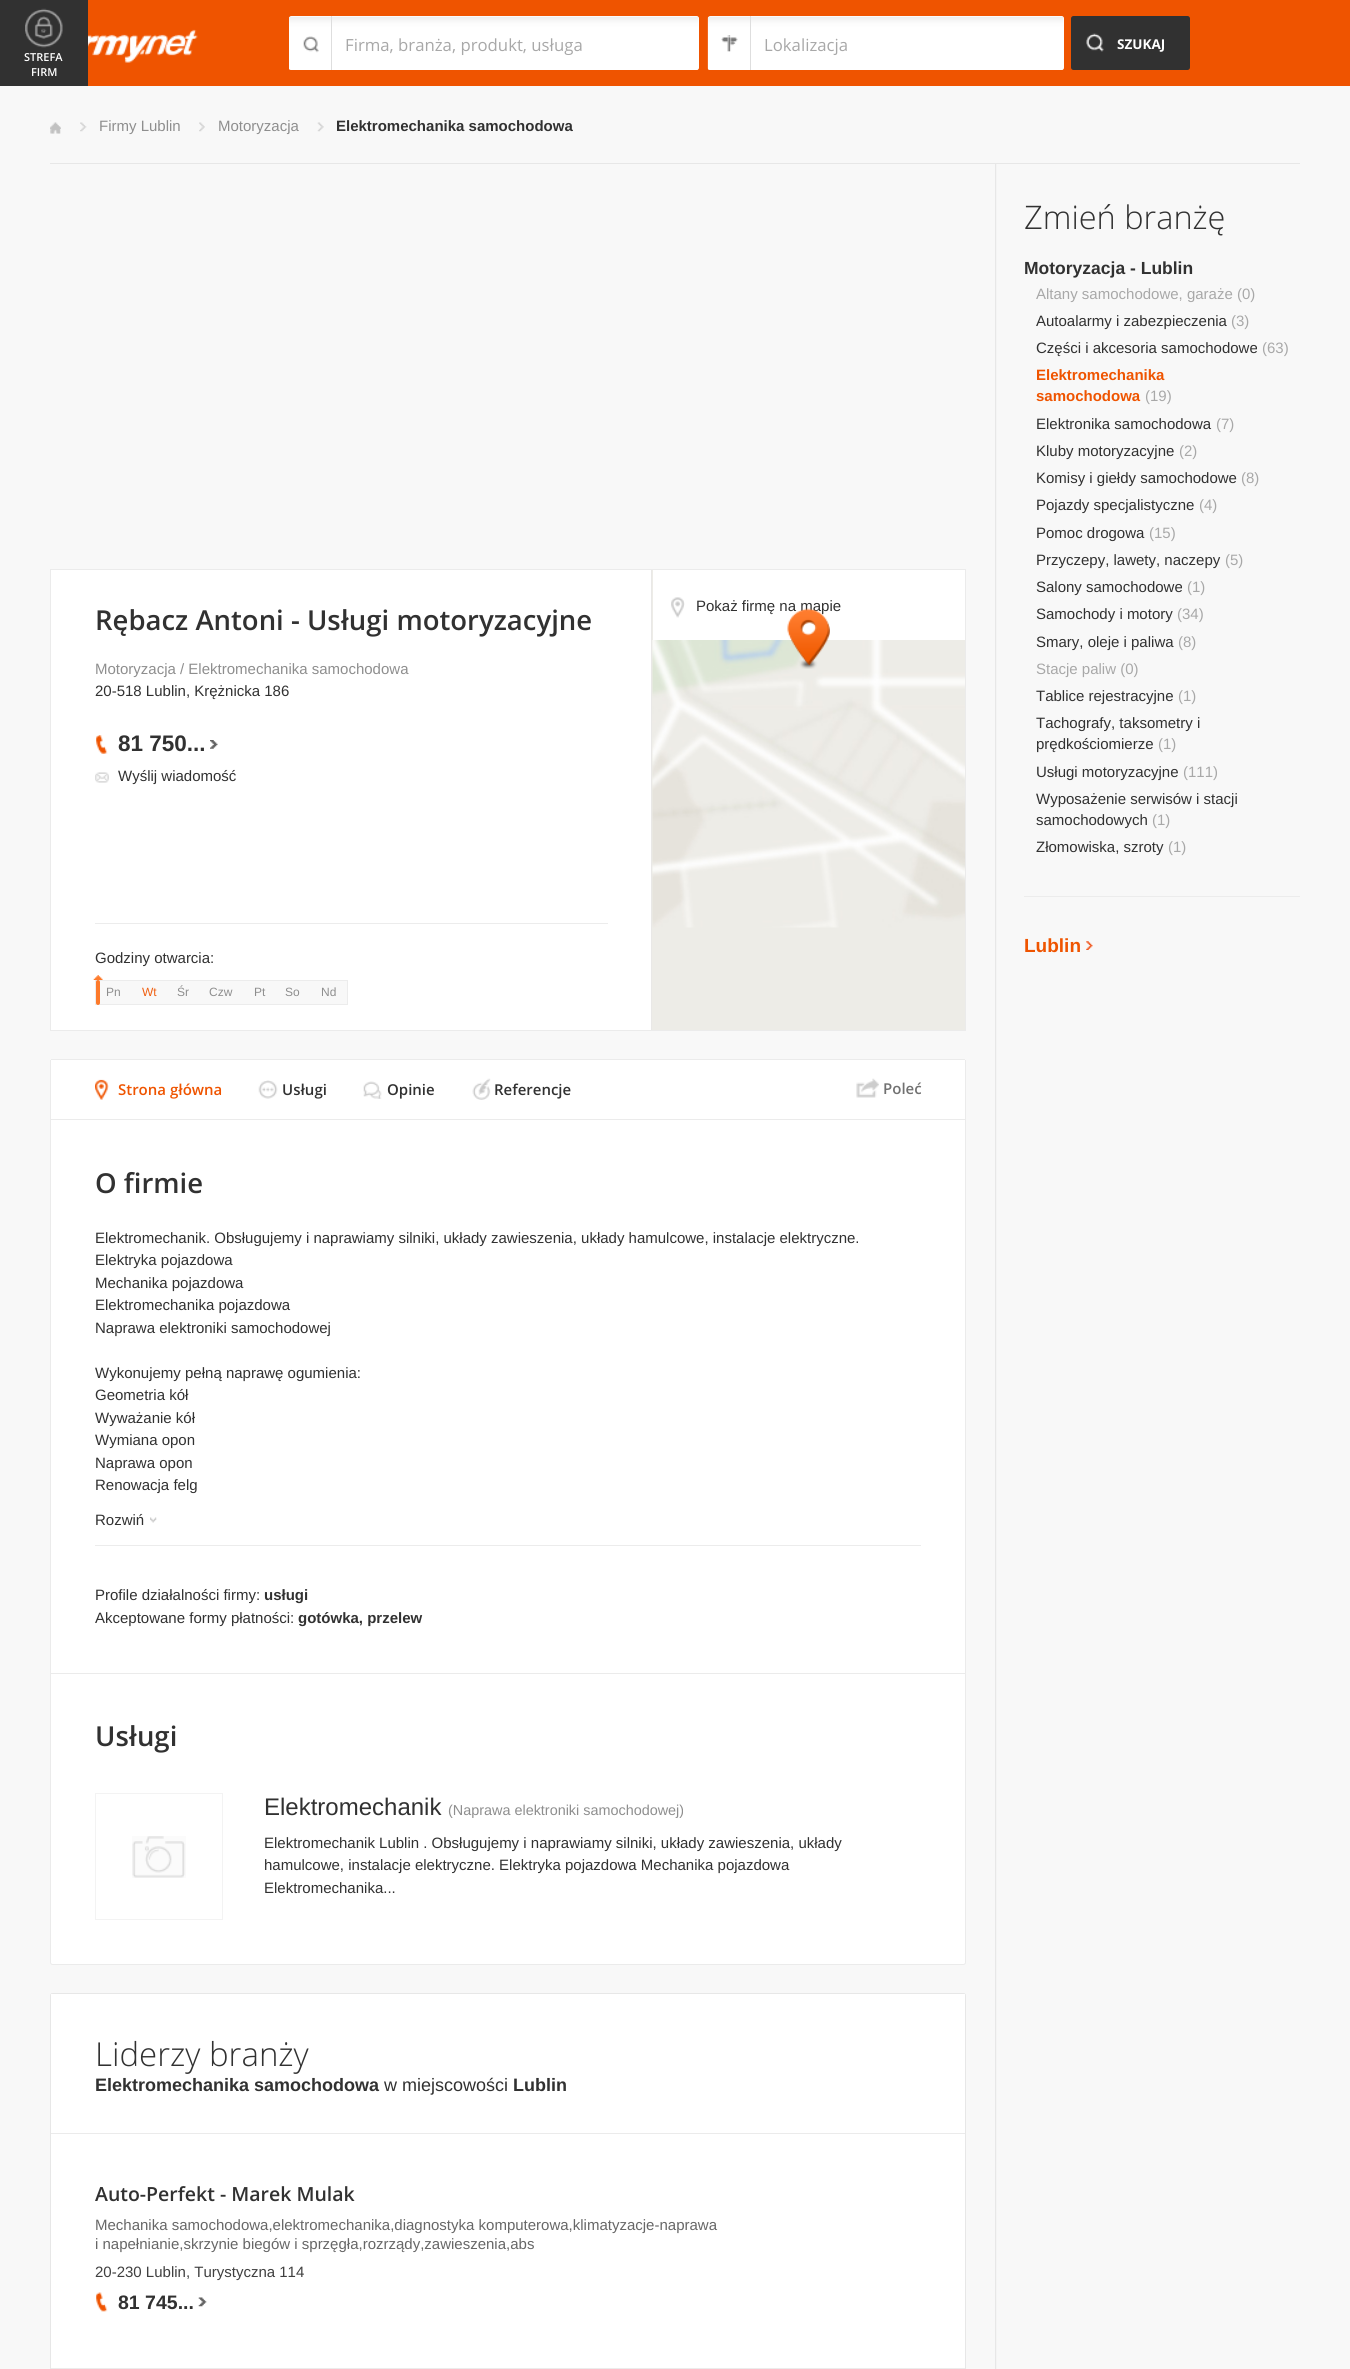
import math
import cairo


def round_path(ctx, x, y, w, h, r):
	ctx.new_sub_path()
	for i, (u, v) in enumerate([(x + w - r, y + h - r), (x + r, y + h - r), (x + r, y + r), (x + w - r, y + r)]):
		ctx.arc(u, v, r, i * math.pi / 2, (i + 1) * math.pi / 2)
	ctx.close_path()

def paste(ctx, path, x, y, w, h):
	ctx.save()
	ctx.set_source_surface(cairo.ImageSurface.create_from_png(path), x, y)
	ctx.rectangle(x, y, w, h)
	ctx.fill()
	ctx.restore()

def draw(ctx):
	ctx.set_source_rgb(0.969, 0.969, 0.969)
	ctx.paint()
	ctx.set_source_rgb(0.937, 0.329, 0)
	ctx.rectangle(88, 0, 1262, 86)
	ctx.fill()
	paste(ctx, 'media/1.png', 88, 29, 110, 34)
	ctx.set_source_rgb(1, 1, 1)
	round_path(ctx, 289, 16, 410, 54, 2.5)
	ctx.fill()
	paste(ctx, 'media/3.png', 289, 16, 410, 54)
	paste(ctx, 'media/2.png', 303, 36, 16, 17)
	ctx.set_source_rgb(0.871, 0.871, 0.871)
	ctx.rectangle(331, 16, 1, 54)
	ctx.fill()
	ctx.select_font_face('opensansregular')
	ctx.set_font_size(16.75)
	ctx.set_source_rgb(0.659, 0.659, 0.659)
	ctx.move_to(345, 51)
	ctx.show_text('Firma, branża, produkt, usługa')
	ctx.set_source_rgb(1, 1, 1)
	round_path(ctx, 708, 16, 356, 54, 2.5)
	ctx.fill()
	paste(ctx, 'media/5.png', 707, 16, 357, 54)
	paste(ctx, 'media/4.png', 721, 35, 17, 17)
	ctx.set_source_rgb(0.871, 0.871, 0.871)
	ctx.rectangle(750, 16, 1, 54)
	ctx.fill()
	ctx.set_source_rgb(0.659, 0.659, 0.659)
	ctx.move_to(764, 51)
	ctx.show_text('Lokalizacja')
	ctx.set_source_rgb(0.192, 0.192, 0.192)
	round_path(ctx, 1071, 16, 119, 54, 2.5)
	ctx.fill()
	paste(ctx, 'media/6.png', 1086, 33, 18, 19)
	ctx.select_font_face('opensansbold', cairo.FONT_SLANT_NORMAL, cairo.FONT_WEIGHT_BOLD)
	ctx.set_font_size(13.5)
	ctx.set_source_rgb(1, 1, 1)
	ctx.move_to(1117, 49)
	ctx.show_text('SZUKAJ')
	ctx.set_source_rgb(0.192, 0.192, 0.192)
	ctx.rectangle(0, 0, 88, 86)
	ctx.fill()
	paste(ctx, 'media/7.png', 25, 8, 38, 40)
	ctx.select_font_face('Open Sans SemiBold')
	ctx.set_font_size(11)
	ctx.set_source_rgb(1, 1, 1)
	ctx.move_to(24, 61)
	ctx.show_text('STREFA')
	ctx.move_to(31, 76)
	ctx.show_text('FIRM')
	ctx.set_source_rgb(0.906, 0.906, 0.906)
	ctx.rectangle(50, 163, 1250, 1)
	ctx.fill()
	paste(ctx, 'media/8.png', 50, 122, 11, 12)
	paste(ctx, 'media/9.png', 80, 122, 7, 10)
	ctx.select_font_face('Liberation Sans')
	ctx.set_font_size(15)
	ctx.set_source_rgb(0.557, 0.557, 0.557)
	ctx.move_to(99, 131)
	ctx.show_text('Firmy Lublin')
	paste(ctx, 'media/10.png', 199, 122, 6, 10)
	ctx.move_to(218, 131)
	ctx.show_text('Motoryzacja')
	paste(ctx, 'media/11.png', 317, 122, 7, 10)
	ctx.select_font_face('Liberation Sans', cairo.FONT_SLANT_NORMAL, cairo.FONT_WEIGHT_BOLD)
	ctx.set_source_rgb(0.192, 0.192, 0.192)
	ctx.move_to(336, 131)
	ctx.show_text('Elektromechanika samochodowa')
	paste(ctx, 'media/12.png', 995, 164, 2, 2205)
	ctx.set_source_rgb(0.929, 0.925, 0.906)
	ctx.rectangle(652, 570, 313, 460)
	ctx.fill()
	ctx.set_source_rgb(0.914, 0.91, 0.906)
	ctx.rectangle(651, 569, 1, 462)
	ctx.fill()
	ctx.rectangle(50.5, 569.5, 915, 461)
	ctx.set_source_rgb(0.918, 0.918, 0.918)
	ctx.set_line_width(1)
	ctx.stroke()
	ctx.set_source_rgb(1, 1, 1)
	ctx.rectangle(653, 570, 312, 70)
	ctx.fill()
	paste(ctx, 'media/13.png', 671, 597, 14, 21)
	ctx.select_font_face('Liberation Sans')
	ctx.set_source_rgb(0.192, 0.192, 0.192)
	ctx.move_to(696, 611)
	ctx.show_text('Pokaż firmę na mapie')
	ctx.set_source_rgb(1, 1, 1)
	ctx.rectangle(51, 570, 600, 460)
	ctx.fill()
	ctx.select_font_face('Open Sans SemiBold')
	ctx.set_font_size(27.5)
	ctx.set_source_rgb(0.192, 0.192, 0.192)
	ctx.move_to(95, 630)
	ctx.show_text('Rębacz Antoni - Usługi motoryzacyjne')
	ctx.select_font_face('Liberation Sans')
	ctx.set_font_size(15)
	ctx.set_source_rgb(0.557, 0.557, 0.557)
	ctx.move_to(95, 674)
	ctx.show_text('Motoryzacja / Elektromechanika samochodowa')
	ctx.set_source_rgb(0.192, 0.192, 0.192)
	ctx.move_to(95, 696)
	ctx.show_text('20-518 Lublin, Krężnicka 186')
	paste(ctx, 'media/14.png', 96, 735, 12, 19)
	ctx.select_font_face('Liberation Sans', cairo.FONT_SLANT_NORMAL, cairo.FONT_WEIGHT_BOLD)
	ctx.set_font_size(22.5)
	ctx.move_to(118, 751)
	ctx.show_text('81 750...')
	paste(ctx, 'media/15.png', 210, 740, 8, 9)
	paste(ctx, 'media/16.png', 95, 772, 14, 11)
	ctx.select_font_face('Liberation Sans')
	ctx.set_font_size(15)
	ctx.move_to(118, 781)
	ctx.show_text('Wyślij wiadomość')
	ctx.set_source_rgb(0.922, 0.922, 0.922)
	ctx.rectangle(95, 923, 513, 1)
	ctx.fill()
	ctx.set_source_rgb(0.192, 0.192, 0.192)
	ctx.move_to(95, 963)
	ctx.show_text('Godziny otwarcia:')
	ctx.set_source_rgb(0.969, 0.969, 0.969)
	ctx.rectangle(95.5, 980.5, 252, 24)
	ctx.fill_preserve()
	ctx.set_source_rgb(0.922, 0.922, 0.922)
	ctx.stroke()
	ctx.set_source_rgb(0.992, 0.478, 0.169)
	round_path(ctx, 96, 980, 4, 25, 2)
	ctx.fill()
	paste(ctx, 'media/17.png', 93, 975, 10, 5)
	ctx.set_font_size(12)
	ctx.set_source_rgb(0.557, 0.557, 0.557)
	ctx.move_to(106, 996)
	ctx.show_text('Pn')
	ctx.set_source_rgb(0.941, 0.373, 0.063)
	ctx.move_to(142, 996)
	ctx.show_text('Wt')
	ctx.set_source_rgb(0.557, 0.557, 0.557)
	for x, y, s in [
		(177, 996, 'Śr'),
		(209, 996, 'Czw'),
		(254, 996, 'Pt'),
		(285, 996, 'So'),
		(321, 996, 'Nd'),
	]:
		ctx.move_to(x, y)
		ctx.show_text(s)
	paste(ctx, 'media/18.png', 652, 640, 313, 288)
	paste(ctx, 'media/19.png', 787, 608, 43, 61)
	ctx.set_source_rgb(1, 1, 1)
	ctx.new_path()
	ctx.move_to(52.5, 1059)
	ctx.line_to(963.5, 1059)
	ctx.curve_to(965, 1059, 966, 1060, 966, 1061.5)
	ctx.line_to(966, 1119)
	ctx.line_to(50, 1119)
	ctx.line_to(50, 1061.5)
	ctx.curve_to(50, 1060, 51, 1059, 52.5, 1059)
	ctx.close_path()
	ctx.fill()
	ctx.set_source_rgb(0.918, 0.918, 0.918)
	ctx.rectangle(51, 1059, 914, 1)
	ctx.rectangle(965, 1060, 1, 59)
	ctx.rectangle(50, 1060, 1, 59)
	ctx.fill()
	paste(ctx, 'media/20.png', 95, 1079, 14, 21)
	ctx.select_font_face('Open Sans SemiBold')
	ctx.set_font_size(15)
	ctx.set_source_rgb(0.937, 0.329, 0)
	ctx.move_to(118, 1095)
	ctx.show_text('Strona główna')
	paste(ctx, 'media/21.png', 258, 1080, 20, 19)
	ctx.set_source_rgb(0.192, 0.192, 0.192)
	ctx.move_to(282, 1095)
	ctx.show_text('Usługi')
	paste(ctx, 'media/22.png', 363, 1081, 19, 18)
	ctx.move_to(387, 1095)
	ctx.show_text('Opinie')
	paste(ctx, 'media/23.png', 472, 1078, 19, 22)
	ctx.move_to(494, 1095)
	ctx.show_text('Referencje')
	paste(ctx, 'media/24.png', 856, 1078, 23, 20)
	ctx.set_source_rgb(0.443, 0.443, 0.443)
	ctx.move_to(883, 1094)
	ctx.show_text('Poleć')
	ctx.set_source_rgb(1, 1, 1)
	ctx.rectangle(51, 1120, 914, 553)
	ctx.fill()
	ctx.set_source_rgb(0.918, 0.918, 0.918)
	ctx.rectangle(50, 1119, 916, 1)
	ctx.rectangle(965, 1119, 1, 554)
	ctx.rectangle(50, 1119, 1, 554)
	ctx.fill()
	ctx.set_font_size(27.5)
	ctx.set_source_rgb(0.192, 0.192, 0.192)
	ctx.move_to(95, 1193)
	ctx.show_text('O firmie')
	ctx.select_font_face('Liberation Sans')
	ctx.set_font_size(15)
	for x, y, s in [
		(95, 1243, 'Elektromechanik. Obsługujemy i naprawiamy silniki, układy zawieszenia, układy hamulcowe, instalacje elektryczne.'),
		(95, 1265, 'Elektryka pojazdowa'),
		(95, 1288, 'Mechanika pojazdowa'),
		(95, 1310, 'Elektromechanika pojazdowa'),
		(95, 1333, 'Naprawa elektroniki samochodowej'),
		(95, 1378, 'Wykonujemy pełną naprawę ogumienia:'),
		(95, 1400, 'Geometria kół'),
		(95, 1423, 'Wyważanie kół'),
		(95, 1445, 'Wymiana opon'),
		(95, 1468, 'Naprawa opon'),
		(95, 1490, 'Renowacja felg'),
		(95, 1525, 'Rozwiń'),
	]:
		ctx.move_to(x, y)
		ctx.show_text(s)
	paste(ctx, 'media/25.png', 150, 1517, 7, 6)
	ctx.set_source_rgb(0.922, 0.922, 0.922)
	ctx.rectangle(95, 1545, 826, 1)
	ctx.fill()
	ctx.set_source_rgb(0.192, 0.192, 0.192)
	ctx.move_to(95, 1600)
	ctx.show_text('Profile działalności firmy:')
	ctx.select_font_face('Liberation Sans', cairo.FONT_SLANT_NORMAL, cairo.FONT_WEIGHT_BOLD)
	ctx.move_to(264, 1600)
	ctx.show_text('usługi')
	ctx.select_font_face('Liberation Sans')
	ctx.move_to(95, 1623)
	ctx.show_text('Akceptowane formy płatności:')
	ctx.select_font_face('Liberation Sans', cairo.FONT_SLANT_NORMAL, cairo.FONT_WEIGHT_BOLD)
	ctx.move_to(298, 1623)
	ctx.show_text('gotówka, przelew')
	ctx.set_source_rgb(1, 1, 1)
	ctx.new_path()
	ctx.move_to(50.5, 1673.5)
	ctx.line_to(965.5, 1673.5)
	ctx.line_to(965.5, 1962.5)
	ctx.curve_to(965.5, 1963.5, 964.5, 1964.5, 963.5, 1964.5)
	ctx.line_to(52.5, 1964.5)
	ctx.curve_to(51.5, 1964.5, 50.5, 1963.5, 50.5, 1962.5)
	ctx.close_path()
	ctx.fill_preserve()
	ctx.set_source_rgb(0.918, 0.918, 0.918)
	ctx.stroke()
	ctx.select_font_face('Open Sans SemiBold')
	ctx.set_font_size(27.5)
	ctx.set_source_rgb(0.192, 0.192, 0.192)
	ctx.move_to(95, 1746)
	ctx.show_text('Usługi')
	ctx.rectangle(95.5, 1793.5, 127, 126)
	ctx.set_source_rgb(0.953, 0.953, 0.953)
	ctx.stroke()
	paste(ctx, 'media/26.png', 132, 1836, 54, 42)
	ctx.select_font_face('Liberation Sans')
	ctx.set_font_size(24)
	ctx.set_source_rgb(0.192, 0.192, 0.192)
	ctx.move_to(264, 1815)
	ctx.show_text('Elektromechanik')
	ctx.set_font_size(14.4)
	ctx.set_source_rgb(0.557, 0.557, 0.557)
	ctx.move_to(448, 1815)
	ctx.show_text('(Naprawa elektroniki samochodowej)')
	ctx.set_font_size(15)
	ctx.set_source_rgb(0.192, 0.192, 0.192)
	for x, y, s in [
		(264, 1848, 'Elektromechanik Lublin . Obsługujemy i naprawiamy silniki, układy zawieszenia, układy'),
		(264, 1870, 'hamulcowe, instalacje elektryczne. Elektryka pojazdowa Mechanika pojazdowa'),
		(264, 1893, 'Elektromechanika...'),
	]:
		ctx.move_to(x, y)
		ctx.show_text(s)
	round_path(ctx, 50.5, 1993.5, 915, 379, 2)
	ctx.set_source_rgb(0.906, 0.906, 0.906)
	ctx.stroke()
	ctx.set_source_rgb(1, 1, 1)
	ctx.rectangle(51, 1994, 914, 139)
	ctx.fill()
	ctx.select_font_face('Open Sans Light')
	ctx.set_font_size(33)
	ctx.set_source_rgb(0.192, 0.192, 0.192)
	ctx.move_to(95, 2066)
	ctx.show_text('Liderzy branży')
	ctx.select_font_face('Liberation Sans', cairo.FONT_SLANT_NORMAL, cairo.FONT_WEIGHT_BOLD)
	ctx.set_font_size(18)
	ctx.move_to(95, 2091)
	ctx.show_text('Elektromechanika samochodowa')
	ctx.select_font_face('Liberation Sans')
	ctx.move_to(384, 2091)
	ctx.show_text('w miejscowości')
	ctx.select_font_face('Liberation Sans', cairo.FONT_SLANT_NORMAL, cairo.FONT_WEIGHT_BOLD)
	ctx.move_to(513, 2091)
	ctx.show_text('Lublin')
	ctx.set_source_rgb(1, 1, 1)
	ctx.rectangle(51, 2134, 914, 234)
	ctx.fill()
	ctx.set_source_rgb(0.918, 0.918, 0.918)
	ctx.rectangle(51, 2133, 914, 1)
	ctx.fill()
	ctx.select_font_face('Open Sans SemiBold')
	ctx.set_font_size(19.5)
	ctx.set_source_rgb(0.192, 0.192, 0.192)
	ctx.move_to(95, 2201)
	ctx.show_text('Auto-Perfekt - Marek Mulak')
	ctx.select_font_face('Liberation Sans')
	ctx.set_font_size(15)
	ctx.set_source_rgb(0.404, 0.404, 0.404)
	ctx.move_to(95, 2230)
	ctx.show_text('Mechanika samochodowa,elektromechanika,diagnostyka komputerowa,klimatyzacje-naprawa')
	ctx.move_to(95, 2249)
	ctx.show_text('i napełnianie,skrzynie biegów i sprzęgła,rozrządy,zawieszenia,abs')
	ctx.set_source_rgb(0.247, 0.247, 0.247)
	ctx.move_to(95, 2277)
	ctx.show_text('20-230 Lublin, Turystyczna 114')
	paste(ctx, 'media/27.png', 96, 2292, 12, 20)
	ctx.select_font_face('Liberation Sans', cairo.FONT_SLANT_NORMAL, cairo.FONT_WEIGHT_BOLD)
	ctx.set_font_size(19.5)
	ctx.set_source_rgb(0.192, 0.192, 0.192)
	ctx.move_to(118, 2309)
	ctx.show_text('81 745...')
	paste(ctx, 'media/28.png', 198, 2297, 9, 10)
	ctx.set_source_rgb(0.918, 0.918, 0.918)
	ctx.rectangle(51, 2368, 914, 1)
	ctx.fill()
	ctx.select_font_face('Open Sans Light')
	ctx.set_font_size(32.5)
	ctx.set_source_rgb(0.192, 0.192, 0.192)
	ctx.move_to(1024, 229)
	ctx.show_text('Zmień branżę')
	ctx.select_font_face('Liberation Sans', cairo.FONT_SLANT_NORMAL, cairo.FONT_WEIGHT_BOLD)
	ctx.set_font_size(17.5)
	ctx.move_to(1024, 274)
	ctx.show_text('Motoryzacja - Lublin')
	ctx.select_font_face('Liberation Sans')
	ctx.set_font_size(15)
	ctx.set_source_rgb(0.659, 0.659, 0.659)
	ctx.move_to(1036, 299)
	ctx.show_text('Altany samochodowe, garaże (0)')
	ctx.set_source_rgb(0.192, 0.192, 0.192)
	ctx.move_to(1036, 326)
	ctx.show_text('Autoalarmy i zabezpieczenia')
	ctx.set_source_rgb(0.659, 0.659, 0.659)
	ctx.move_to(1231, 326)
	ctx.show_text('(3)')
	ctx.set_source_rgb(0.192, 0.192, 0.192)
	ctx.move_to(1036, 353)
	ctx.show_text('Części i akcesoria samochodowe')
	ctx.set_source_rgb(0.659, 0.659, 0.659)
	ctx.move_to(1262, 353)
	ctx.show_text('(63)')
	ctx.select_font_face('Liberation Sans', cairo.FONT_SLANT_NORMAL, cairo.FONT_WEIGHT_BOLD)
	ctx.set_source_rgb(0.937, 0.329, 0)
	ctx.move_to(1036, 380)
	ctx.show_text('Elektromechanika')
	ctx.move_to(1036, 401)
	ctx.show_text('samochodowa')
	ctx.select_font_face('Liberation Sans')
	ctx.set_source_rgb(0.659, 0.659, 0.659)
	ctx.move_to(1145, 401)
	ctx.show_text('(19)')
	ctx.set_source_rgb(0.192, 0.192, 0.192)
	ctx.move_to(1036, 429)
	ctx.show_text('Elektronika samochodowa')
	ctx.set_source_rgb(0.659, 0.659, 0.659)
	ctx.move_to(1216, 429)
	ctx.show_text('(7)')
	ctx.set_source_rgb(0.192, 0.192, 0.192)
	ctx.move_to(1036, 456)
	ctx.show_text('Kluby motoryzacyjne')
	ctx.set_source_rgb(0.659, 0.659, 0.659)
	ctx.move_to(1179, 456)
	ctx.show_text('(2)')
	ctx.set_source_rgb(0.192, 0.192, 0.192)
	ctx.move_to(1036, 483)
	ctx.show_text('Komisy i giełdy samochodowe')
	ctx.set_source_rgb(0.659, 0.659, 0.659)
	ctx.move_to(1241, 483)
	ctx.show_text('(8)')
	ctx.set_source_rgb(0.192, 0.192, 0.192)
	ctx.move_to(1036, 510)
	ctx.show_text('Pojazdy specjalistyczne')
	ctx.set_source_rgb(0.659, 0.659, 0.659)
	ctx.move_to(1199, 510)
	ctx.show_text('(4)')
	ctx.set_source_rgb(0.192, 0.192, 0.192)
	ctx.move_to(1036, 538)
	ctx.show_text('Pomoc drogowa')
	ctx.set_source_rgb(0.659, 0.659, 0.659)
	ctx.move_to(1149, 538)
	ctx.show_text('(15)')
	ctx.set_source_rgb(0.192, 0.192, 0.192)
	ctx.move_to(1036, 565)
	ctx.show_text('Przyczepy, lawety, naczepy')
	ctx.set_source_rgb(0.659, 0.659, 0.659)
	ctx.move_to(1225, 565)
	ctx.show_text('(5)')
	ctx.set_source_rgb(0.192, 0.192, 0.192)
	ctx.move_to(1036, 592)
	ctx.show_text('Salony samochodowe')
	ctx.set_source_rgb(0.659, 0.659, 0.659)
	ctx.move_to(1187, 592)
	ctx.show_text('(1)')
	ctx.set_source_rgb(0.192, 0.192, 0.192)
	ctx.move_to(1036, 619)
	ctx.show_text('Samochody i motory')
	ctx.set_source_rgb(0.659, 0.659, 0.659)
	ctx.move_to(1177, 619)
	ctx.show_text('(34)')
	ctx.set_source_rgb(0.192, 0.192, 0.192)
	ctx.move_to(1036, 647)
	ctx.show_text('Smary, oleje i paliwa')
	ctx.set_source_rgb(0.659, 0.659, 0.659)
	ctx.move_to(1178, 647)
	ctx.show_text('(8)')
	ctx.move_to(1036, 674)
	ctx.show_text('Stacje paliw (0)')
	ctx.set_source_rgb(0.192, 0.192, 0.192)
	ctx.move_to(1036, 701)
	ctx.show_text('Tablice rejestracyjne')
	ctx.set_source_rgb(0.659, 0.659, 0.659)
	ctx.move_to(1178, 701)
	ctx.show_text('(1)')
	ctx.set_source_rgb(0.192, 0.192, 0.192)
	ctx.move_to(1036, 728)
	ctx.show_text('Tachografy, taksometry i')
	ctx.move_to(1036, 749)
	ctx.show_text('prędkościomierze')
	ctx.set_source_rgb(0.659, 0.659, 0.659)
	ctx.move_to(1158, 749)
	ctx.show_text('(1)')
	ctx.set_source_rgb(0.192, 0.192, 0.192)
	ctx.move_to(1036, 777)
	ctx.show_text('Usługi motoryzacyjne')
	ctx.set_source_rgb(0.659, 0.659, 0.659)
	ctx.move_to(1183, 777)
	ctx.show_text('(111)')
	ctx.set_source_rgb(0.192, 0.192, 0.192)
	ctx.move_to(1036, 804)
	ctx.show_text('Wyposażenie serwisów i stacji')
	ctx.move_to(1036, 825)
	ctx.show_text('samochodowych')
	ctx.set_source_rgb(0.659, 0.659, 0.659)
	ctx.move_to(1152, 825)
	ctx.show_text('(1)')
	ctx.set_source_rgb(0.192, 0.192, 0.192)
	ctx.move_to(1036, 852)
	ctx.show_text('Złomowiska, szroty')
	ctx.set_source_rgb(0.659, 0.659, 0.659)
	ctx.move_to(1168, 852)
	ctx.show_text('(1)')
	ctx.set_source_rgb(0.922, 0.922, 0.922)
	ctx.rectangle(1024, 896, 276, 1)
	ctx.fill()
	ctx.select_font_face('Liberation Sans', cairo.FONT_SLANT_NORMAL, cairo.FONT_WEIGHT_BOLD)
	ctx.set_font_size(19)
	ctx.set_source_rgb(0.937, 0.329, 0)
	ctx.move_to(1024, 952)
	ctx.show_text('Lublin')
	paste(ctx, 'media/29.png', 1086, 941, 7, 9)


surface = cairo.ImageSurface(cairo.FORMAT_RGB24, 1350, 2369)
ctx = cairo.Context(surface)
options = cairo.FontOptions()
options.set_hint_metrics(cairo.HINT_METRICS_OFF)
options.set_hint_style(cairo.HINT_STYLE_NONE)
ctx.set_font_options(options)
ctx.set_miter_limit(4)
draw(ctx)
surface.write_to_png('image.png')
